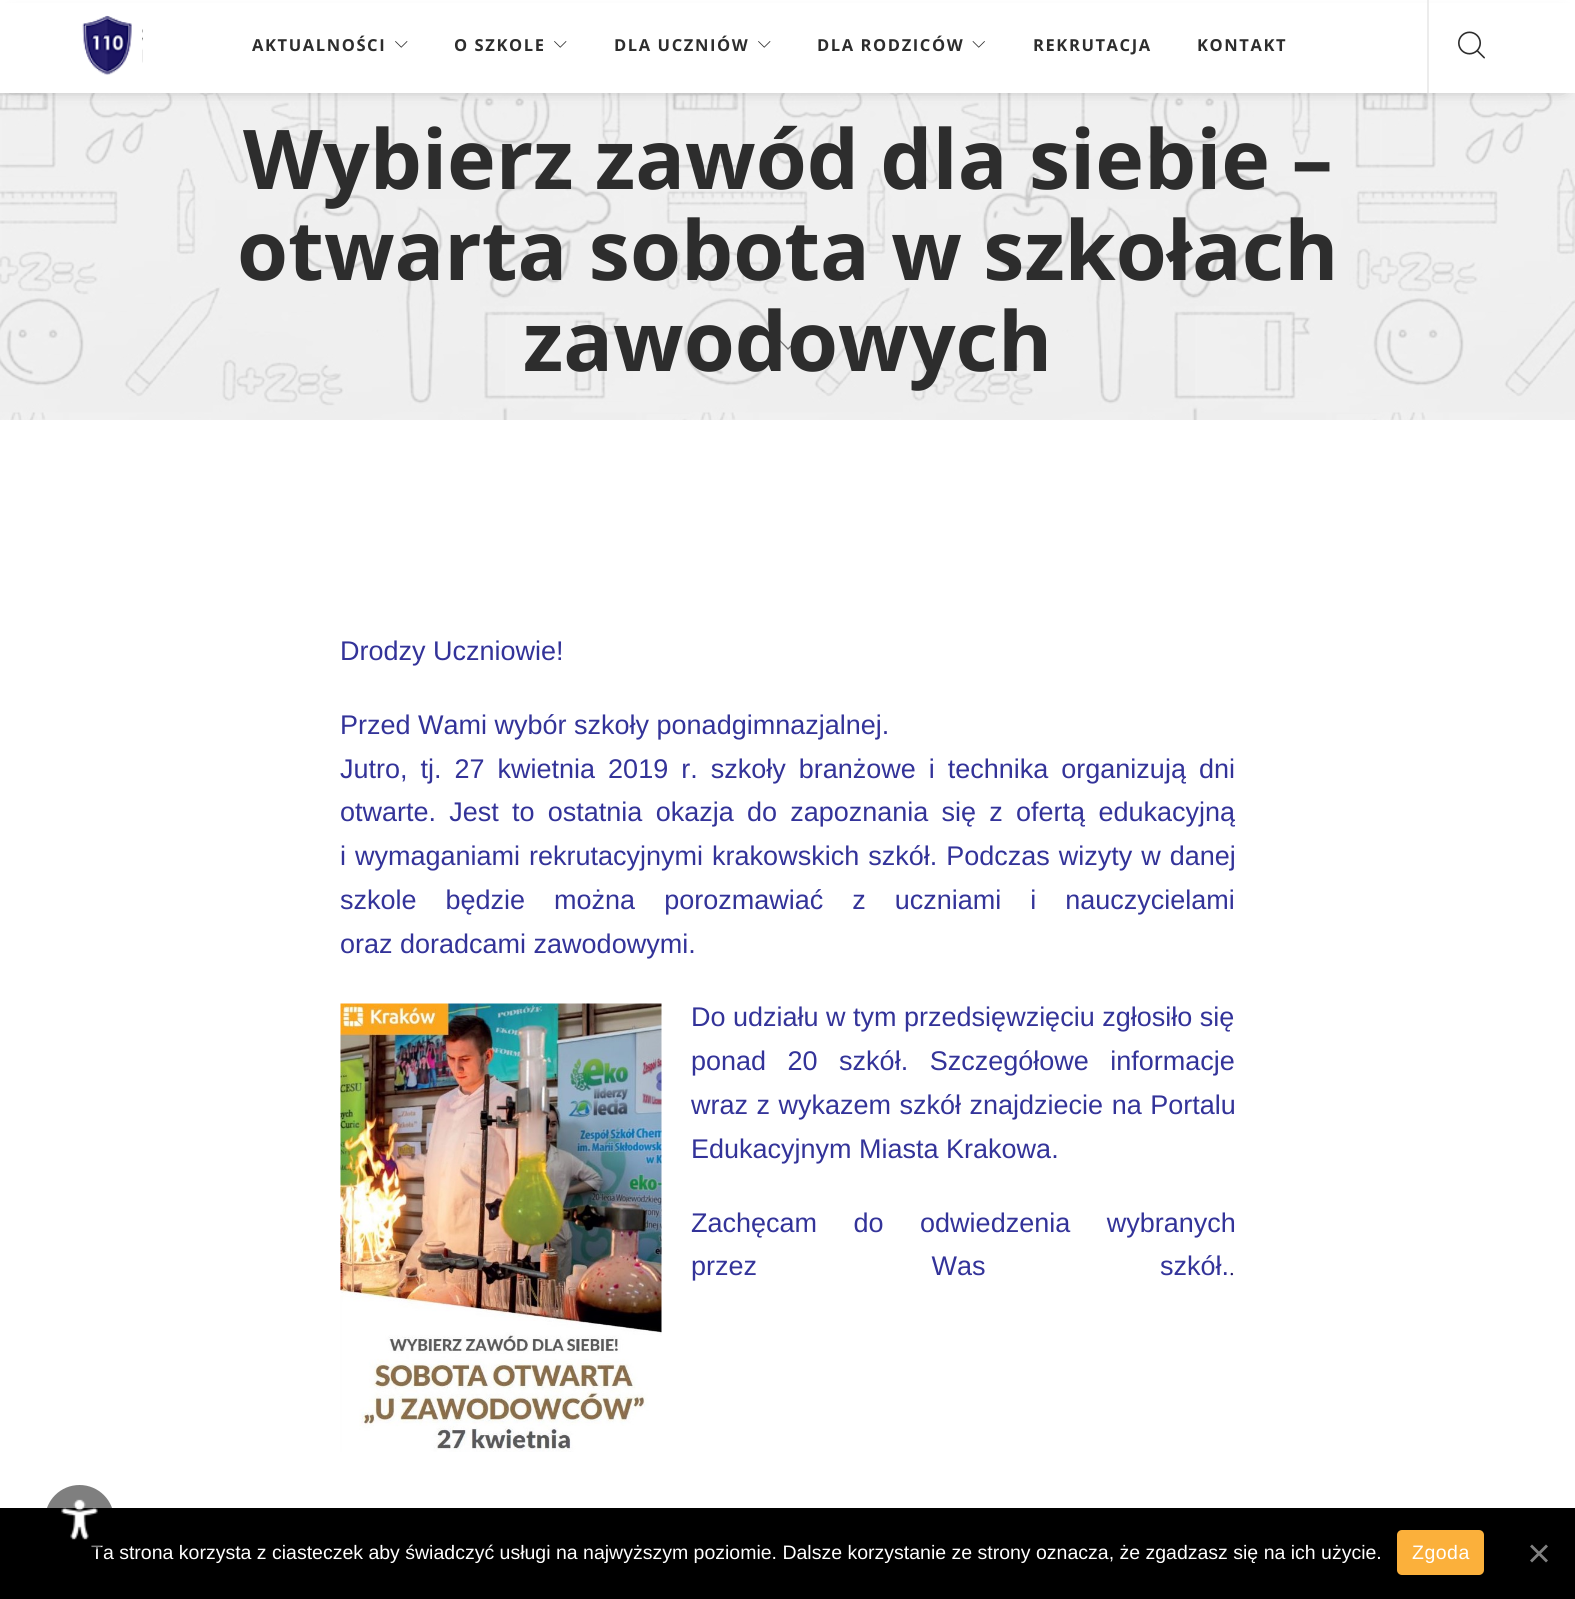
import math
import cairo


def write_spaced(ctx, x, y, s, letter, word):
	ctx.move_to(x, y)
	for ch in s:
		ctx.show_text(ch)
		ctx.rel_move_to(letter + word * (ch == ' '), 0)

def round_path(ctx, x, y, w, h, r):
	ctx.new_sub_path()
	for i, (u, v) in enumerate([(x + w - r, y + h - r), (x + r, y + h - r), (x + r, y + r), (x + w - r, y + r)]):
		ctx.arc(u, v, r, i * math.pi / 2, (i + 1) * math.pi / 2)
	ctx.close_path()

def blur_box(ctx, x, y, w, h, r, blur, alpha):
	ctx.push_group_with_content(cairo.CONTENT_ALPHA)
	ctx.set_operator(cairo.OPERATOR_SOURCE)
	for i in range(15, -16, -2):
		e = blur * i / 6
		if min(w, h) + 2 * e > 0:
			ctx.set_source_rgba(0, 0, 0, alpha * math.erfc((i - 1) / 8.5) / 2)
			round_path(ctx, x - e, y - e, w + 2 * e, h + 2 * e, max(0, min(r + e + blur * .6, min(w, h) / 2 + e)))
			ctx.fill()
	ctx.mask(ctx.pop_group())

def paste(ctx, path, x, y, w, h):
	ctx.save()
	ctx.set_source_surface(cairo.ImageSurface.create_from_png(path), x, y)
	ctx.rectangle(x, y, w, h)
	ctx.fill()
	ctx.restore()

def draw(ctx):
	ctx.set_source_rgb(1, 1, 1)
	ctx.paint()
	paste(ctx, 'media/5.png', 0, 93, 1575, 327)
	ctx.set_source_rgb(0, 0, 0)
	blur_box(ctx, 12, 18, 1551, 69, 0, 7.5, 0.45)
	ctx.set_source_rgb(1, 1, 1)
	ctx.rectangle(0, 3, 1575, 90)
	ctx.fill()
	paste(ctx, 'media/1.png', 82, 15, 61, 60)
	ctx.select_font_face('Open Sans', cairo.FONT_SLANT_NORMAL, cairo.FONT_WEIGHT_BOLD)
	ctx.set_font_size(16.5)
	ctx.set_source_rgb(0.176, 0.176, 0.176)
	write_spaced(ctx, 252, 51, 'AKTUALNOŚCI', 1.6, 0)
	paste(ctx, 'media/2.png', 395, 41, 13, 7)
	write_spaced(ctx, 454, 51, 'O SZKOLE', 1.6, 0)
	paste(ctx, 'media/2.png', 554, 41, 13, 7)
	write_spaced(ctx, 614, 51, 'DLA UCZNIÓW', 1.6, 0)
	paste(ctx, 'media/2.png', 758, 41, 13, 7)
	write_spaced(ctx, 817, 51, 'DLA RODZICÓW', 1.6, 0)
	paste(ctx, 'media/3.png', 972, 41, 13, 7)
	write_spaced(ctx, 1033, 51, 'REKRUTACJA', 1.6, 0)
	write_spaced(ctx, 1197, 51, 'KONTAKT', 1.6, 0)
	ctx.set_source_rgb(0.922, 0.922, 0.922)
	ctx.rectangle(1427, 0, 2, 93)
	ctx.fill()
	paste(ctx, 'media/4.png', 1458, 31, 27, 28)
	ctx.set_font_size(82.5)
	ctx.set_source_rgb(0.176, 0.176, 0.176)
	ctx.move_to(243, 189)
	ctx.show_text('Wybierz zawód dla siebie –')
	ctx.move_to(237, 280)
	ctx.show_text('otwarta sobota w szkołach')
	ctx.set_source_rgb(0.427, 0.427, 0.427)
	ctx.new_path()
	ctx.move_to(798.5, 339.5)
	ctx.line_to(797.5, 339)
	ctx.line_to(788, 348)
	ctx.line_to(779, 339)
	ctx.line_to(778, 339.5)
	ctx.line_to(788, 350)
	ctx.close_path()
	ctx.fill()
	ctx.set_source_rgb(0.176, 0.176, 0.176)
	ctx.move_to(523, 371)
	ctx.show_text('zawodowych')
	ctx.select_font_face('Liberation Sans')
	ctx.set_font_size(27)
	ctx.set_source_rgb(0.2, 0.2, 0.6)
	ctx.move_to(340, 660)
	ctx.show_text('Drodzy Uczniowie!')
	ctx.move_to(340, 734)
	ctx.show_text('Przed Wami wybór szkoły ponadgimnazjalnej.')
	write_spaced(ctx, 340, 778, 'Jutro, tj. 27 kwietnia 2019 r. szkoły branżowe i technika organizują dni', 0, 5.5)
	write_spaced(ctx, 340, 821, 'otwarte. Jest to ostatnia okazja do zapoznania się z ofertą edukacyjną', 0, 5.75)
	write_spaced(ctx, 340, 865, 'i wymaganiami rekrutacyjnymi krakowskich szkół. Podczas wizyty w danej', 0, 1.5)
	write_spaced(ctx, 340, 909, 'szkole będzie można porozmawiać z uczniami i nauczycielami', 0, 21.5)
	ctx.move_to(340, 953)
	ctx.show_text('oraz doradcami zawodowymi.')
	paste(ctx, 'media/6.png', 340, 1003, 322, 449)
	ctx.move_to(691, 1026)
	ctx.show_text('Do udziału w tym przedsięwzięciu zgłosiło się')
	write_spaced(ctx, 691, 1070, 'ponad 20 szkół. Szczegółowe informacje', 0, 14)
	write_spaced(ctx, 691, 1114, 'wraz z wykazem szkół znajdziecie na Portalu', 0, 1)
	ctx.move_to(691, 1158)
	ctx.show_text('Edukacyjnym Miasta Krakowa.')
	write_spaced(ctx, 691, 1232, 'Zachęcam do odwiedzenia wybranych', 0, 29)
	write_spaced(ctx, 691, 1275, 'przez Was szkół.', 0, 167)
	ctx.select_font_face('Quattrocento')
	ctx.set_font_size(26)
	ctx.set_source_rgb(0.106, 0.078, 0.38)
	ctx.move_to(1229, 1275)
	ctx.show_text('.')
	ctx.set_source_rgb(0, 0, 0)
	ctx.rectangle(0, 1508, 1575, 91)
	ctx.fill()
	ctx.select_font_face('Liberation Sans')
	ctx.set_font_size(19.5)
	ctx.set_source_rgb(1, 1, 1)
	ctx.move_to(91, 1559)
	ctx.show_text('Ta strona korzysta z ciasteczek aby świadczyć usługi na najwyższym poziomie. Dalsze korzystanie ze strony oznacza, że zgadzasz się na ich użycie.')
	ctx.set_source_rgba(0, 0, 0, 0.5)
	ctx.new_path()
	ctx.arc(79.5, 1519.5, 34.5, 0, 2 * math.pi)
	ctx.fill()
	paste(ctx, 'media/7.png', 61, 1499, 37, 41)
	ctx.set_source_rgb(0.984, 0.69, 0.231)
	round_path(ctx, 1397, 1530, 87, 45, 5)
	ctx.fill()
	ctx.set_source_rgb(1, 1, 1)
	write_spaced(ctx, 1412, 1559, 'Zgoda', 0.5, 0)
	ctx.set_source_rgb(0.502, 0.502, 0.502)
	ctx.new_path()
	ctx.move_to(1546, 1544.5)
	ctx.line_to(1548, 1546.5)
	ctx.line_to(1532, 1562.5)
	ctx.line_to(1530, 1560.5)
	ctx.close_path()
	ctx.fill()
	ctx.new_path()
	ctx.move_to(1530, 1546.5)
	ctx.line_to(1532, 1544.5)
	ctx.line_to(1548, 1560.5)
	ctx.line_to(1546, 1562.5)
	ctx.close_path()
	ctx.fill()


surface = cairo.ImageSurface(cairo.FORMAT_RGB24, 1575, 1599)
ctx = cairo.Context(surface)
options = cairo.FontOptions()
options.set_hint_metrics(cairo.HINT_METRICS_OFF)
options.set_hint_style(cairo.HINT_STYLE_NONE)
ctx.set_font_options(options)
ctx.set_miter_limit(4)
draw(ctx)
surface.write_to_png('image.png')
